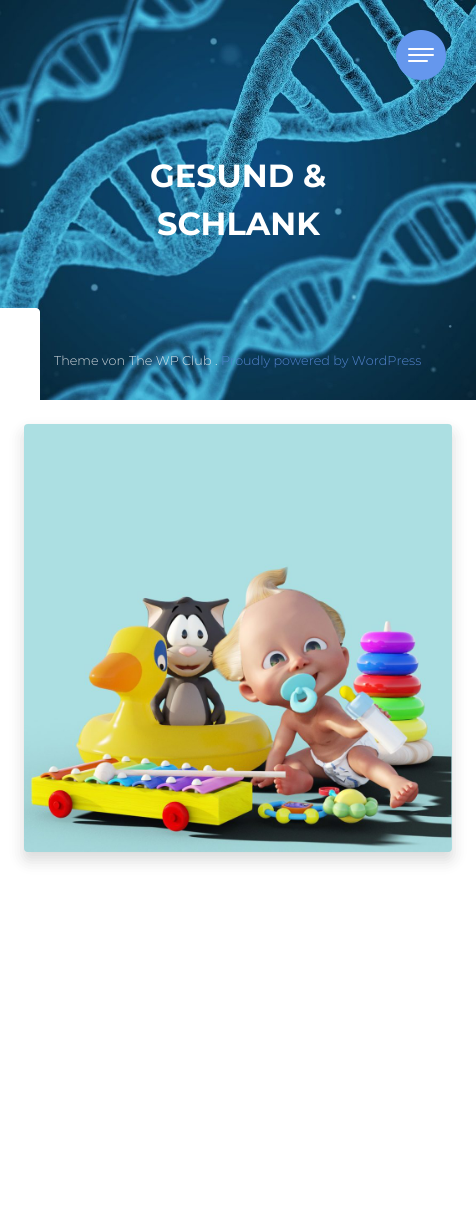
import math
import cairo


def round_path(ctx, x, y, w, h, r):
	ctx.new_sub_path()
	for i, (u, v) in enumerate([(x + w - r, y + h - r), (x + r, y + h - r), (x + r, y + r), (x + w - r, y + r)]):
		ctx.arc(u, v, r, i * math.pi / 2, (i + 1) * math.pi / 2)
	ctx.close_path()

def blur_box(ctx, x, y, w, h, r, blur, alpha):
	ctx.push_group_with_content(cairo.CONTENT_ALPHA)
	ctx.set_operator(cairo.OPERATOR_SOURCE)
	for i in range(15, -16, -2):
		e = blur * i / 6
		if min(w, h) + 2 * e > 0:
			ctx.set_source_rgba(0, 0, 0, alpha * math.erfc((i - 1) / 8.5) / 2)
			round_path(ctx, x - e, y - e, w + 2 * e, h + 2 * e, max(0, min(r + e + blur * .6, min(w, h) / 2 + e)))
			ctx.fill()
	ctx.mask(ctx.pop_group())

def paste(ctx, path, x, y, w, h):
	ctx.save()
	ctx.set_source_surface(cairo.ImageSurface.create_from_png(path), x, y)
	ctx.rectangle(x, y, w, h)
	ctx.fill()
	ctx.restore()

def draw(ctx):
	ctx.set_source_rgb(1, 1, 1)
	ctx.paint()
	paste(ctx, 'media/1.png', 0, 0, 476, 400)
	ctx.set_source_rgb(0.396, 0.592, 0.929)
	ctx.arc(421, 55, 25, 0, 2 * math.pi)
	ctx.fill()
	ctx.set_source_rgb(1, 1, 1)
	round_path(ctx, 408, 48, 26, 2, 1)
	ctx.fill()
	round_path(ctx, 408, 54, 26, 2, 1)
	ctx.fill()
	round_path(ctx, 408, 60, 20, 2, 1)
	ctx.fill()
	ctx.select_font_face('Montserrat', cairo.FONT_SLANT_NORMAL, cairo.FONT_WEIGHT_BOLD)
	ctx.set_font_size(32)
	ctx.move_to(150, 187)
	ctx.show_text('GESUND &')
	ctx.move_to(157, 235)
	ctx.show_text('SCHLANK')
	ctx.new_path()
	ctx.move_to(0, 424)
	ctx.line_to(0, 308)
	ctx.line_to(36, 308)
	ctx.curve_to(38, 308, 40, 310, 40, 312)
	ctx.line_to(40, 420)
	ctx.curve_to(40, 422, 38, 424, 36, 424)
	ctx.close_path()
	ctx.fill()
	ctx.select_font_face('Montserrat Light')
	ctx.set_font_size(12.75)
	ctx.set_source_rgb(0.808, 0.839, 0.859)
	ctx.move_to(54, 365)
	ctx.show_text('Theme von')
	ctx.set_source_rgb(0.827, 0.882, 0.914)
	ctx.move_to(129, 365)
	ctx.show_text('The WP Club')
	ctx.set_source_rgb(0.843, 0.925, 0.953)
	ctx.move_to(215, 365)
	ctx.show_text('.')
	ctx.set_source_rgb(0.325, 0.518, 0.812)
	ctx.move_to(221, 365)
	ctx.show_text('Proudly powered by WordPress')
	ctx.set_source_rgb(0, 0, 0)
	blur_box(ctx, 24, 432, 428, 428, 4, 8, 0.15)
	paste(ctx, 'media/2.png', 24, 424, 428, 428)


surface = cairo.ImageSurface(cairo.FORMAT_RGB24, 476, 1221)
ctx = cairo.Context(surface)
options = cairo.FontOptions()
options.set_hint_metrics(cairo.HINT_METRICS_OFF)
options.set_hint_style(cairo.HINT_STYLE_NONE)
ctx.set_font_options(options)
ctx.set_miter_limit(4)
draw(ctx)
surface.write_to_png('image.png')
